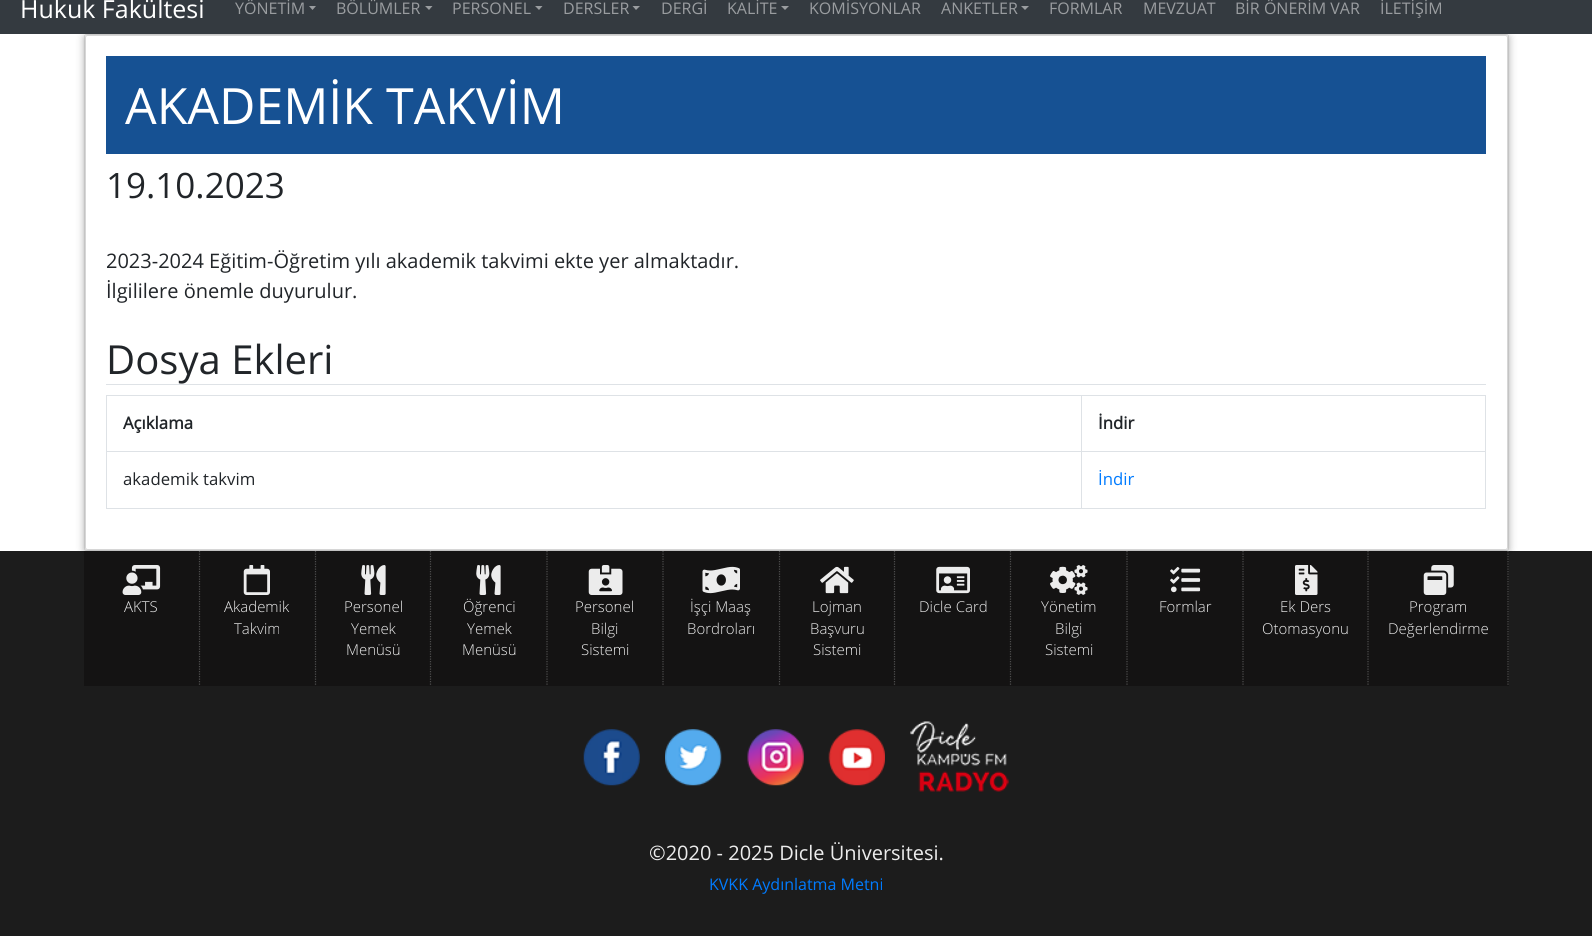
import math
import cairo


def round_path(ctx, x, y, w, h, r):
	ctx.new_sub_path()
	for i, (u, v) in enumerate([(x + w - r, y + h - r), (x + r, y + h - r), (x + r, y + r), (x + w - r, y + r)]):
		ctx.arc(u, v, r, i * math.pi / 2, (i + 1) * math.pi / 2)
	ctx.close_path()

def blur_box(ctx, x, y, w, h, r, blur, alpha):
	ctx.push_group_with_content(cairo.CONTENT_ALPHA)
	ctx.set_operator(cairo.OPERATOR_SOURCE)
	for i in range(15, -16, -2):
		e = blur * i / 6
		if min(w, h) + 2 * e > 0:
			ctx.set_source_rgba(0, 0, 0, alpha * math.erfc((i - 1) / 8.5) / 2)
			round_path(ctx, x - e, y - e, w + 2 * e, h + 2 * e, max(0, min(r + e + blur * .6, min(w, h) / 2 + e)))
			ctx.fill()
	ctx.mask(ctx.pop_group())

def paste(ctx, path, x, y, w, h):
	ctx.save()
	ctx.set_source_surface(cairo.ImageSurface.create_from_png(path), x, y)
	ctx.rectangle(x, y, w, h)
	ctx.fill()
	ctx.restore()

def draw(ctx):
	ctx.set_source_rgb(0.11, 0.11, 0.11)
	ctx.paint()
	ctx.set_source_rgb(1, 1, 1)
	ctx.rectangle(0, 34, 1592, 517)
	ctx.fill()
	ctx.set_source_rgb(0, 0, 0)
	blur_box(ctx, 84, 35, 1425, 518, 2.5, 4, 0.18)
	ctx.set_source_rgb(1, 1, 1)
	round_path(ctx, 84.5, 34.5, 1424, 516, 2)
	ctx.fill_preserve()
	ctx.set_source_rgb(0.839, 0.839, 0.839)
	ctx.set_line_width(1)
	ctx.stroke()
	ctx.set_source_rgb(0, 0, 0)
	blur_box(ctx, 85, 36, 1423, 515, 2.5, 4, 0.18)
	ctx.set_source_rgb(0.204, 0.227, 0.251)
	ctx.rectangle(0, 0, 1592, 34)
	ctx.fill()
	ctx.select_font_face('Open Sans')
	ctx.set_font_size(25)
	ctx.set_source_rgb(1, 1, 1)
	ctx.move_to(20, 18)
	ctx.show_text('Hukuk Fakültesi')
	ctx.set_font_size(16)
	ctx.set_source_rgb(0.604, 0.616, 0.627)
	ctx.move_to(235, 14)
	ctx.show_text('YÖNETİM')
	ctx.new_path()
	ctx.move_to(309, 6)
	ctx.line_to(316, 6)
	ctx.line_to(312.5, 10)
	ctx.close_path()
	ctx.fill()
	ctx.move_to(336, 14)
	ctx.show_text('BÖLÜMLER')
	ctx.new_path()
	ctx.move_to(425, 6)
	ctx.line_to(432.5, 6)
	ctx.line_to(429, 10)
	ctx.close_path()
	ctx.fill()
	ctx.move_to(452, 14)
	ctx.show_text('PERSONEL')
	ctx.new_path()
	ctx.move_to(535, 6)
	ctx.line_to(542.5, 6)
	ctx.line_to(539, 10)
	ctx.close_path()
	ctx.fill()
	ctx.move_to(563, 14)
	ctx.show_text('DERSLER')
	ctx.new_path()
	ctx.move_to(632.5, 6)
	ctx.line_to(640, 6)
	ctx.line_to(636, 10)
	ctx.close_path()
	ctx.fill()
	ctx.move_to(661, 14)
	ctx.show_text('DERGİ')
	ctx.move_to(727, 14)
	ctx.show_text('KALİTE')
	ctx.new_path()
	ctx.move_to(781, 6)
	ctx.line_to(789, 6)
	ctx.line_to(785, 10)
	ctx.close_path()
	ctx.fill()
	ctx.move_to(809, 14)
	ctx.show_text('KOMİSYONLAR')
	ctx.move_to(941, 14)
	ctx.show_text('ANKETLER')
	ctx.new_path()
	ctx.move_to(1021, 6)
	ctx.line_to(1029, 6)
	ctx.line_to(1025, 10)
	ctx.close_path()
	ctx.fill()
	for x, y, s in [
		(1049, 14, 'FORMLAR'),
		(1143, 14, 'MEVZUAT'),
		(1235, 14, 'BİR ÖNERİM VAR'),
		(1380, 14, 'İLETİŞİM'),
	]:
		ctx.move_to(x, y)
		ctx.show_text(s)
	ctx.set_source_rgb(1, 1, 1)
	round_path(ctx, 85.5, 35.5, 1422, 514, 2)
	ctx.fill_preserve()
	ctx.set_source_rgb(0.839, 0.839, 0.839)
	ctx.stroke()
	ctx.set_source_rgb(0.086, 0.318, 0.576)
	ctx.rectangle(106, 56, 1380, 98)
	ctx.fill()
	ctx.set_font_size(50)
	ctx.set_source_rgb(1, 1, 1)
	ctx.move_to(125, 124)
	ctx.show_text('AKADEMİK TAKVİM')
	ctx.set_font_size(35)
	ctx.set_source_rgb(0.129, 0.145, 0.161)
	ctx.move_to(106, 198)
	ctx.show_text('19.10.2023')
	ctx.set_font_size(20)
	ctx.move_to(106, 268)
	ctx.show_text('2023-2024 Eğitim-Öğretim yılı akademik takvimi ekte yer almaktadır.')
	ctx.move_to(106, 298)
	ctx.show_text('İlgililere önemle duyurulur.')
	ctx.set_source_rgb(0.871, 0.886, 0.902)
	ctx.rectangle(106, 384, 1380, 1)
	ctx.fill()
	ctx.set_font_size(40)
	ctx.set_source_rgb(0.129, 0.145, 0.161)
	ctx.move_to(106, 374)
	ctx.show_text('Dosya Ekleri')
	ctx.set_source_rgb(0.871, 0.886, 0.902)
	ctx.rectangle(106, 395, 1380, 1)
	ctx.rectangle(1485, 395, 1, 114)
	ctx.rectangle(106, 508, 1380, 1)
	ctx.rectangle(106, 395, 1, 114)
	ctx.fill()
	ctx.select_font_face('Open Sans', cairo.FONT_SLANT_NORMAL, cairo.FONT_WEIGHT_BOLD)
	ctx.set_font_size(16.75)
	ctx.set_source_rgb(0.129, 0.145, 0.161)
	ctx.move_to(123, 429)
	ctx.show_text('Açıklama')
	ctx.set_source_rgb(0.871, 0.886, 0.902)
	ctx.rectangle(1081, 451, 405, 1)
	ctx.rectangle(1081, 451, 1, 58)
	ctx.rectangle(106, 451, 977, 1)
	ctx.rectangle(1081, 395, 1, 58)
	ctx.fill()
	ctx.set_source_rgb(0.129, 0.145, 0.161)
	ctx.move_to(1098, 429)
	ctx.show_text('İndir')
	ctx.select_font_face('Open Sans')
	ctx.move_to(123, 485)
	ctx.show_text('akademik takvim')
	ctx.set_source_rgb(0, 0.482, 1)
	ctx.move_to(1098, 485)
	ctx.show_text('İndir')
	ctx.set_source_rgb(0.082, 0.078, 0.078)
	ctx.rectangle(84, 551, 1425, 135)
	ctx.fill()
	ctx.new_path()
	ctx.move_to(199.5, 551)
	ctx.line_to(199.5, 686)
	ctx.set_source_rgb(0.302, 0.302, 0.302)
	ctx.set_line_width(1.2)
	ctx.set_dash([1.25, 1.25])
	ctx.stroke()
	paste(ctx, 'media/1.png', 122, 565, 39, 30)
	ctx.select_font_face('Open Sans Light')
	ctx.set_font_size(15)
	ctx.set_source_rgb(0.925, 0.925, 0.925)
	ctx.move_to(124, 612)
	ctx.show_text('AKTS')
	ctx.new_path()
	ctx.move_to(315.5, 551)
	ctx.line_to(315.5, 686)
	ctx.set_source_rgb(0.302, 0.302, 0.302)
	ctx.stroke()
	paste(ctx, 'media/2.png', 243, 565, 27, 30)
	ctx.set_source_rgb(0.925, 0.925, 0.925)
	ctx.move_to(224, 612)
	ctx.show_text('Akademik')
	ctx.move_to(234, 634)
	ctx.show_text('Takvim')
	ctx.new_path()
	ctx.move_to(430.5, 551)
	ctx.line_to(430.5, 686)
	ctx.set_source_rgb(0.302, 0.302, 0.302)
	ctx.stroke()
	paste(ctx, 'media/3.png', 361, 565, 25, 30)
	ctx.set_source_rgb(0.925, 0.925, 0.925)
	for x, y, s in [
		(344, 612, 'Personel'),
		(351, 634, 'Yemek'),
		(346, 655, 'Menüsü'),
	]:
		ctx.move_to(x, y)
		ctx.show_text(s)
	ctx.new_path()
	ctx.move_to(547, 551)
	ctx.line_to(547, 686)
	ctx.set_source_rgb(0.302, 0.302, 0.302)
	ctx.stroke()
	paste(ctx, 'media/3.png', 476, 565, 25, 30)
	ctx.set_source_rgb(0.925, 0.925, 0.925)
	for x, y, s in [
		(463, 612, 'Öğrenci'),
		(467, 634, 'Yemek'),
		(462, 655, 'Menüsü'),
	]:
		ctx.move_to(x, y)
		ctx.show_text(s)
	ctx.new_path()
	ctx.move_to(663, 551)
	ctx.line_to(663, 686)
	ctx.set_source_rgb(0.302, 0.302, 0.302)
	ctx.stroke()
	paste(ctx, 'media/4.png', 588, 565, 35, 30)
	ctx.set_source_rgb(0.925, 0.925, 0.925)
	for x, y, s in [
		(575, 612, 'Personel'),
		(591, 634, 'Bilgi'),
		(581, 655, 'Sistemi'),
	]:
		ctx.move_to(x, y)
		ctx.show_text(s)
	ctx.new_path()
	ctx.move_to(779.5, 551)
	ctx.line_to(779.5, 686)
	ctx.set_source_rgb(0.302, 0.302, 0.302)
	ctx.stroke()
	paste(ctx, 'media/5.png', 702, 566, 38, 28)
	ctx.set_source_rgb(0.925, 0.925, 0.925)
	ctx.move_to(690, 612)
	ctx.show_text('İşçi Maaş')
	ctx.move_to(687, 634)
	ctx.show_text('Bordroları')
	ctx.new_path()
	ctx.move_to(894.5, 551)
	ctx.line_to(894.5, 686)
	ctx.set_source_rgb(0.302, 0.302, 0.302)
	ctx.stroke()
	paste(ctx, 'media/6.png', 820, 566, 34, 28)
	ctx.set_source_rgb(0.925, 0.925, 0.925)
	for x, y, s in [
		(812, 612, 'Lojman'),
		(810, 634, 'Başvuru'),
		(813, 655, 'Sistemi'),
	]:
		ctx.move_to(x, y)
		ctx.show_text(s)
	ctx.new_path()
	ctx.move_to(1010.5, 551)
	ctx.line_to(1010.5, 686)
	ctx.set_source_rgb(0.302, 0.302, 0.302)
	ctx.stroke()
	paste(ctx, 'media/7.png', 936, 566, 34, 28)
	ctx.set_source_rgb(0.925, 0.925, 0.925)
	ctx.move_to(919, 612)
	ctx.show_text('Dicle Card')
	ctx.new_path()
	ctx.move_to(1127, 551)
	ctx.line_to(1127, 686)
	ctx.set_source_rgb(0.302, 0.302, 0.302)
	ctx.stroke()
	paste(ctx, 'media/8.png', 1050, 565, 38, 30)
	ctx.set_source_rgb(0.925, 0.925, 0.925)
	for x, y, s in [
		(1041, 612, 'Yönetim'),
		(1055, 634, 'Bilgi'),
		(1045, 655, 'Sistemi'),
	]:
		ctx.move_to(x, y)
		ctx.show_text(s)
	ctx.new_path()
	ctx.move_to(1243, 551)
	ctx.line_to(1243, 686)
	ctx.set_source_rgb(0.302, 0.302, 0.302)
	ctx.stroke()
	paste(ctx, 'media/9.png', 1170, 566, 31, 27)
	ctx.set_source_rgb(0.925, 0.925, 0.925)
	ctx.move_to(1159, 612)
	ctx.show_text('Formlar')
	ctx.new_path()
	ctx.move_to(1368, 551)
	ctx.line_to(1368, 686)
	ctx.set_source_rgb(0.302, 0.302, 0.302)
	ctx.stroke()
	paste(ctx, 'media/10.png', 1295, 565, 23, 30)
	ctx.set_source_rgb(0.925, 0.925, 0.925)
	ctx.move_to(1280, 612)
	ctx.show_text('Ek Ders')
	ctx.move_to(1262, 634)
	ctx.show_text('Otomasyonu')
	ctx.new_path()
	ctx.move_to(1508, 551)
	ctx.line_to(1508, 686)
	ctx.set_source_rgb(0.302, 0.302, 0.302)
	ctx.stroke()
	paste(ctx, 'media/11.png', 1423, 565, 31, 30)
	ctx.set_source_rgb(0.925, 0.925, 0.925)
	ctx.move_to(1409, 612)
	ctx.show_text('Program')
	ctx.move_to(1388, 634)
	ctx.show_text('Değerlendirme')
	paste(ctx, 'media/12.png', 583, 729, 57, 57)
	paste(ctx, 'media/13.png', 665, 729, 57, 57)
	paste(ctx, 'media/14.png', 747, 729, 57, 57)
	paste(ctx, 'media/15.png', 828, 729, 57, 57)
	paste(ctx, 'media/16.png', 910, 721, 99, 71)
	ctx.select_font_face('Open Sans')
	ctx.set_font_size(20)
	ctx.move_to(649, 860)
	ctx.show_text('©2020 - 2025 Dicle Üniversitesi.')
	ctx.set_font_size(16)
	ctx.set_source_rgb(0, 0.482, 1)
	ctx.move_to(709, 890)
	ctx.show_text('KVKK Aydınlatma Metni')


surface = cairo.ImageSurface(cairo.FORMAT_RGB24, 1592, 936)
ctx = cairo.Context(surface)
options = cairo.FontOptions()
options.set_hint_metrics(cairo.HINT_METRICS_OFF)
options.set_hint_style(cairo.HINT_STYLE_NONE)
ctx.set_font_options(options)
ctx.set_miter_limit(4)
draw(ctx)
surface.write_to_png('image.png')
